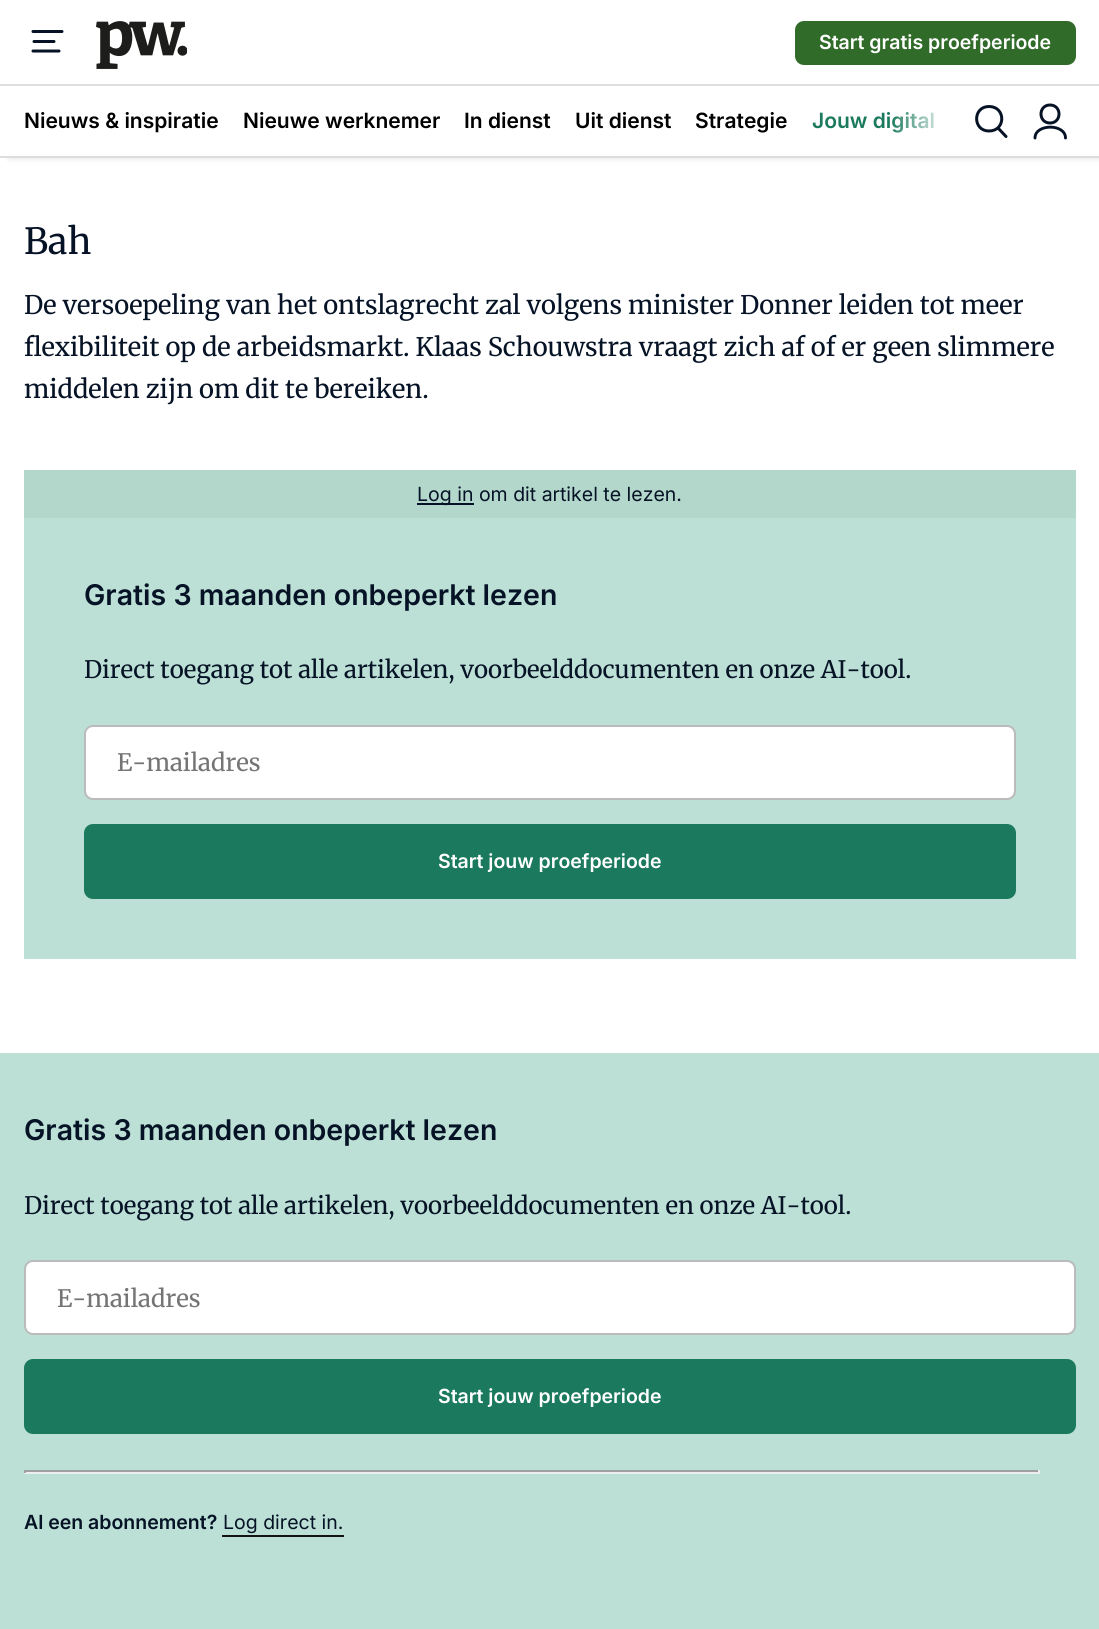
import math
import cairo


def round_path(ctx, x, y, w, h, r):
	ctx.new_sub_path()
	for i, (u, v) in enumerate([(x + w - r, y + h - r), (x + r, y + h - r), (x + r, y + r), (x + w - r, y + r)]):
		ctx.arc(u, v, r, i * math.pi / 2, (i + 1) * math.pi / 2)
	ctx.close_path()

def blur_box(ctx, x, y, w, h, r, blur, alpha):
	ctx.push_group_with_content(cairo.CONTENT_ALPHA)
	ctx.set_operator(cairo.OPERATOR_SOURCE)
	for i in range(15, -16, -2):
		e = blur * i / 6
		if min(w, h) + 2 * e > 0:
			ctx.set_source_rgba(0, 0, 0, alpha * math.erfc((i - 1) / 8.5) / 2)
			round_path(ctx, x - e, y - e, w + 2 * e, h + 2 * e, max(0, min(r + e + blur * .6, min(w, h) / 2 + e)))
			ctx.fill()
	ctx.mask(ctx.pop_group())

def paste(ctx, path, x, y, w, h):
	ctx.save()
	ctx.set_source_surface(cairo.ImageSurface.create_from_png(path), x, y)
	ctx.rectangle(x, y, w, h)
	ctx.fill()
	ctx.restore()

def draw(ctx):
	ctx.set_source_rgb(1, 1, 1)
	ctx.paint()
	ctx.set_source_rgb(0, 0, 0)
	blur_box(ctx, 9, 8, 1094, 151, 0, 3, 0.1)
	ctx.set_source_rgb(1, 1, 1)
	ctx.rectangle(5, 4, 1094, 152)
	ctx.fill()
	ctx.set_source_rgb(0.871, 0.871, 0.871)
	ctx.rectangle(0, 156, 1099, 2)
	ctx.fill()
	ctx.save()
	ctx.new_path()
	ctx.move_to(31.5, 30)
	ctx.line_to(64.5, 30)
	ctx.line_to(64.5, 54)
	ctx.line_to(31.5, 54)
	ctx.close_path()
	ctx.clip()
	ctx.new_path()
	ctx.move_to(33, 31.5)
	ctx.line_to(62, 31.5)
	ctx.move_to(34, 41.5)
	ctx.line_to(54, 41.5)
	ctx.move_to(33, 51)
	ctx.line_to(59, 51)
	ctx.set_source_rgb(0.024, 0.078, 0.149)
	ctx.set_line_width(3)
	ctx.set_line_cap(cairo.LINE_CAP_ROUND)
	ctx.set_line_join(cairo.LINE_JOIN_ROUND)
	ctx.stroke()
	ctx.restore()
	paste(ctx, 'media/1.png', 96, 21, 91, 48)
	ctx.set_source_rgb(0.188, 0.42, 0.161)
	round_path(ctx, 795, 21, 281, 44, 9)
	ctx.fill()
	ctx.select_font_face('Inter SemiBold')
	ctx.set_font_size(19.5)
	ctx.set_source_rgb(1, 1, 1)
	ctx.move_to(819, 49)
	ctx.show_text('Start gratis proefperiode')
	ctx.set_source_rgb(0.871, 0.871, 0.871)
	ctx.rectangle(0, 84, 1099, 2)
	ctx.fill()
	ctx.set_font_size(21)
	ctx.set_source_rgb(0, 0, 0)
	for x, y, s in [
		(24, 128, 'Nieuws & inspiratie'),
		(243, 128, 'Nieuwe werknemer'),
		(464, 128, 'In dienst'),
		(575, 128, 'Uit dienst'),
		(695, 128, 'Strategie'),
	]:
		ctx.move_to(x, y)
		ctx.show_text(s)
	ctx.set_source_rgb(0.106, 0.475, 0.365)
	ctx.move_to(812, 128)
	ctx.show_text('Jouw digital')
	gradient = cairo.LinearGradient(890, 121, 950, 121)
	gradient.add_color_stop_rgba(0, 1, 1, 1, 0)
	gradient.add_color_stop_rgba(1, 1, 1, 1, 1)
	ctx.set_source(gradient)
	ctx.rectangle(892, 112, 42, 21)
	ctx.fill()
	ctx.new_path()
	ctx.move_to(989, 131)
	ctx.curve_to(1006, 131, 1006, 106.5, 989, 106.5)
	ctx.curve_to(972.5, 106.5, 972.5, 131, 989, 131)
	ctx.move_to(998, 128)
	ctx.line_to(1006, 136.5)
	ctx.set_source_rgb(0.024, 0.078, 0.149)
	ctx.set_line_width(3)
	ctx.set_line_cap(cairo.LINE_CAP_ROUND)
	ctx.set_line_join(cairo.LINE_JOIN_ROUND)
	ctx.stroke()
	ctx.save()
	ctx.new_path()
	ctx.move_to(1033.5, 103.5)
	ctx.line_to(1068, 103.5)
	ctx.line_to(1068, 139.5)
	ctx.line_to(1033.5, 139.5)
	ctx.close_path()
	ctx.clip()
	ctx.new_path()
	ctx.move_to(1050, 123)
	ctx.curve_to(1062, 123, 1062, 105, 1050, 105)
	ctx.curve_to(1038, 105, 1038, 123, 1050, 123)
	ctx.stroke()
	ctx.new_path()
	ctx.move_to(1035, 138)
	ctx.curve_to(1035, 123.5, 1065.5, 123.5, 1065.5, 138)
	ctx.set_line_width(2.9)
	ctx.stroke()
	ctx.restore()
	ctx.select_font_face('Merriweather')
	ctx.set_font_size(36)
	ctx.move_to(24, 254)
	ctx.show_text('Bah')
	ctx.set_font_size(25.5)
	for x, y, s in [
		(24, 314, 'De versoepeling van het ontslagrecht zal volgens minister Donner leiden tot meer'),
		(24, 356, 'flexibiliteit op de arbeidsmarkt. Klaas Schouwstra vraagt zich af of er geen slimmere'),
		(24, 398, 'middelen zijn om dit te bereiken.'),
	]:
		ctx.move_to(x, y)
		ctx.show_text(s)
	ctx.set_source_rgb(0.706, 0.843, 0.8)
	ctx.rectangle(24, 470, 1052, 48)
	ctx.fill()
	ctx.set_source_rgb(0.024, 0.078, 0.149)
	ctx.rectangle(417, 503, 57, 2)
	ctx.fill()
	ctx.select_font_face('Inter')
	ctx.set_font_size(19.5)
	ctx.move_to(417, 501)
	ctx.show_text('Log in om dit artikel te lezen.')
	ctx.set_source_rgb(0.737, 0.878, 0.835)
	ctx.rectangle(24, 518, 1052, 441)
	ctx.fill()
	ctx.select_font_face('Inter SemiBold')
	ctx.set_font_size(28.5)
	ctx.set_source_rgb(0.024, 0.078, 0.149)
	ctx.move_to(84, 605)
	ctx.show_text('Gratis 3 maanden onbeperkt lezen')
	ctx.select_font_face('Merriweather')
	ctx.set_font_size(24)
	ctx.move_to(84, 678)
	ctx.show_text('Direct toegang tot alle artikelen, voorbeelddocumenten en onze AI-tool.')
	ctx.set_source_rgb(1, 1, 1)
	round_path(ctx, 85, 726, 930, 73, 8)
	ctx.fill_preserve()
	ctx.set_source_rgb(0.733, 0.733, 0.733)
	ctx.set_line_width(2)
	ctx.set_line_cap(cairo.LINE_CAP_BUTT)
	ctx.set_line_join(cairo.LINE_JOIN_MITER)
	ctx.stroke()
	ctx.set_source_rgb(0.459, 0.459, 0.459)
	ctx.move_to(117, 771)
	ctx.show_text('E-mailadres')
	ctx.set_source_rgb(0.106, 0.475, 0.365)
	round_path(ctx, 84, 824, 932, 75, 9)
	ctx.fill()
	ctx.select_font_face('Inter SemiBold')
	ctx.set_font_size(19.5)
	ctx.set_source_rgb(1, 1, 1)
	ctx.move_to(438, 868)
	ctx.show_text('Start jouw proefperiode')
	ctx.set_source_rgb(0.737, 0.878, 0.835)
	ctx.rectangle(0, 1053, 1099, 576)
	ctx.fill()
	ctx.set_font_size(28.5)
	ctx.set_source_rgb(0.024, 0.078, 0.149)
	ctx.move_to(24, 1140)
	ctx.show_text('Gratis 3 maanden onbeperkt lezen')
	ctx.select_font_face('Merriweather')
	ctx.set_font_size(24)
	ctx.move_to(24, 1214)
	ctx.show_text('Direct toegang tot alle artikelen, voorbeelddocumenten en onze AI-tool.')
	ctx.set_source_rgb(1, 1, 1)
	round_path(ctx, 25, 1261, 1050, 73, 8)
	ctx.fill_preserve()
	ctx.set_source_rgb(0.733, 0.733, 0.733)
	ctx.stroke()
	ctx.set_source_rgb(0.459, 0.459, 0.459)
	ctx.move_to(57, 1307)
	ctx.show_text('E-mailadres')
	ctx.set_source_rgb(0.106, 0.475, 0.365)
	round_path(ctx, 24, 1359, 1052, 75, 9)
	ctx.fill()
	ctx.select_font_face('Inter SemiBold')
	ctx.set_font_size(19.5)
	ctx.set_source_rgb(1, 1, 1)
	ctx.move_to(438, 1403)
	ctx.show_text('Start jouw proefperiode')
	ctx.set_source_rgb(0.624, 0.624, 0.624)
	ctx.rectangle(24, 1470, 1016, 2)
	ctx.fill()
	ctx.set_source_rgb(0.933, 0.933, 0.933)
	ctx.rectangle(1038, 1470, 2, 3)
	ctx.rectangle(24, 1472, 1016, 2)
	ctx.fill()
	ctx.set_source_rgb(0.624, 0.624, 0.624)
	ctx.rectangle(24, 1470, 2, 3)
	ctx.fill()
	ctx.set_source_rgb(0.024, 0.078, 0.149)
	ctx.move_to(24, 1529)
	ctx.show_text('Al een abonnement?')
	ctx.select_font_face('Inter')
	ctx.move_to(223, 1529)
	ctx.show_text('Log direct in.')
	ctx.set_source_rgb(0.078, 0.078, 0.078)
	ctx.rectangle(222, 1535, 122, 2)
	ctx.fill()


surface = cairo.ImageSurface(cairo.FORMAT_RGB24, 1099, 1629)
ctx = cairo.Context(surface)
options = cairo.FontOptions()
options.set_hint_metrics(cairo.HINT_METRICS_OFF)
options.set_hint_style(cairo.HINT_STYLE_NONE)
ctx.set_font_options(options)
ctx.set_miter_limit(4)
draw(ctx)
surface.write_to_png('image.png')
